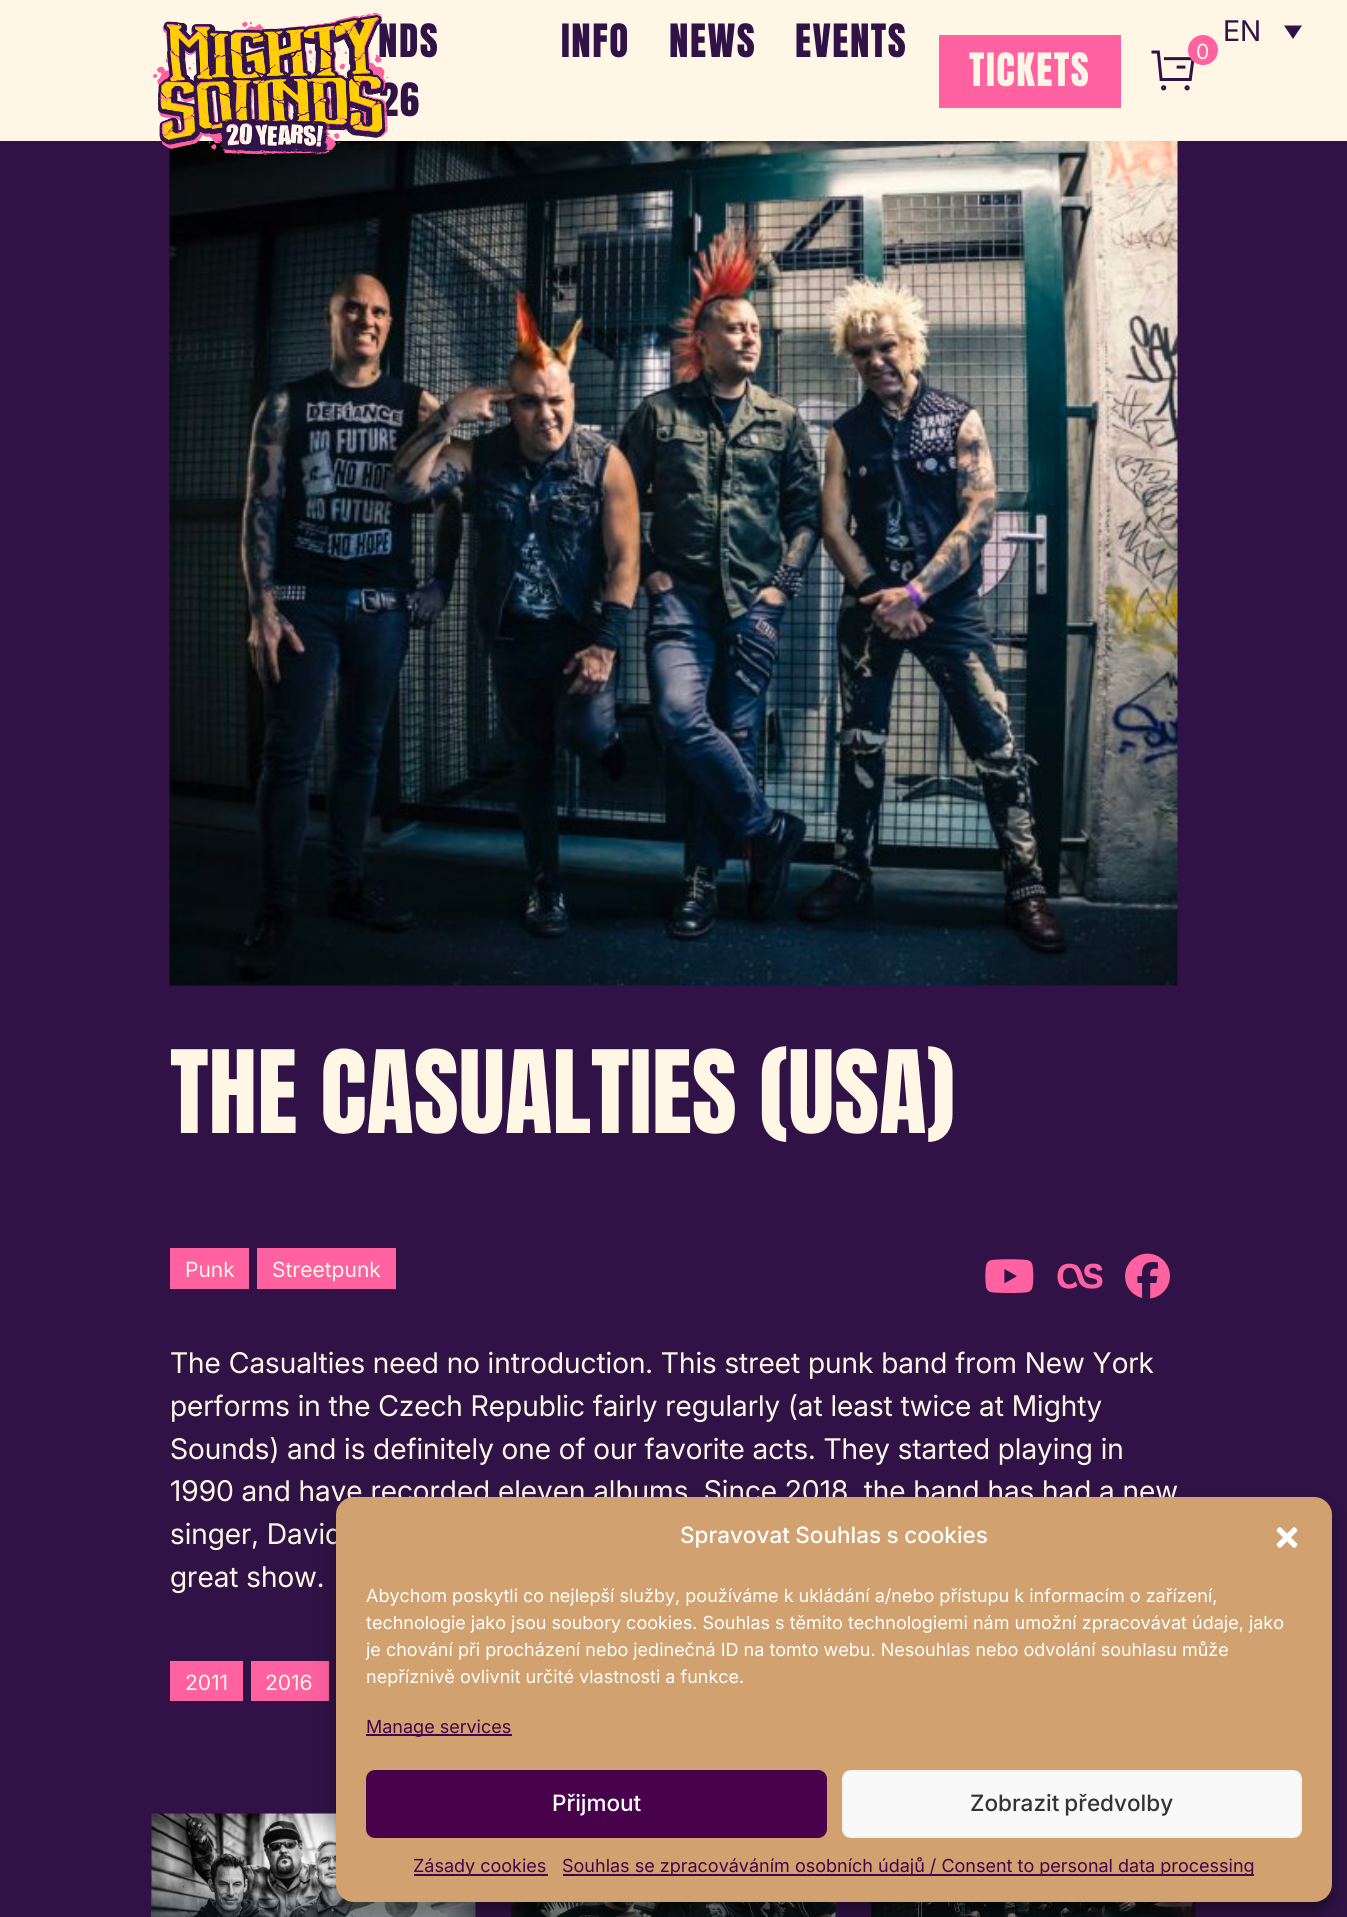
import math
import cairo


def write_spaced(ctx, x, y, s, letter, word):
	ctx.move_to(x, y)
	for ch in s:
		ctx.show_text(ch)
		ctx.rel_move_to(letter + word * (ch == ' '), 0)

def round_path(ctx, x, y, w, h, r):
	ctx.new_sub_path()
	for i, (u, v) in enumerate([(x + w - r, y + h - r), (x + r, y + h - r), (x + r, y + r), (x + w - r, y + r)]):
		ctx.arc(u, v, r, i * math.pi / 2, (i + 1) * math.pi / 2)
	ctx.close_path()

def blur_box(ctx, x, y, w, h, r, blur, alpha):
	ctx.push_group_with_content(cairo.CONTENT_ALPHA)
	ctx.set_operator(cairo.OPERATOR_SOURCE)
	for i in range(15, -16, -2):
		e = blur * i / 6
		if min(w, h) + 2 * e > 0:
			ctx.set_source_rgba(0, 0, 0, alpha * math.erfc((i - 1) / 8.5) / 2)
			round_path(ctx, x - e, y - e, w + 2 * e, h + 2 * e, max(0, min(r + e + blur * .6, min(w, h) / 2 + e)))
			ctx.fill()
	ctx.mask(ctx.pop_group())

def paste(ctx, path, x, y, w, h):
	ctx.save()
	ctx.set_source_surface(cairo.ImageSurface.create_from_png(path), x, y)
	ctx.rectangle(x, y, w, h)
	ctx.fill()
	ctx.restore()

def draw(ctx):
	ctx.set_source_rgb(0.188, 0.071, 0.275)
	ctx.paint()
	ctx.set_source_rgb(1, 0.961, 0.902)
	ctx.rectangle(0, 0, 1347, 141)
	ctx.fill()
	ctx.select_font_face('Anton')
	ctx.set_font_size(39)
	ctx.set_source_rgb(0.188, 0.071, 0.275)
	write_spaced(ctx, 378, 57, 'NDS', 1.5, 0)
	write_spaced(ctx, 379, 116, '26', 1.5, 0)
	paste(ctx, 'media/3.png', 169, 141, 1009, 845)
	paste(ctx, 'media/1.png', 153, 13, 235, 143)
	for x, y, s in [
		(561, 57, 'INFO'),
		(669, 57, 'NEWS'),
		(795, 57, 'EVENTS'),
	]:
		write_spaced(ctx, x, y, s, 1.5, 0)
	ctx.set_source_rgb(1, 0.38, 0.631)
	ctx.rectangle(939, 35, 182, 73)
	ctx.fill()
	ctx.set_source_rgb(1, 0.961, 0.902)
	write_spaced(ctx, 969, 86, 'TICKETS', 1.5, 0)
	paste(ctx, 'media/2.png', 1151, 50, 43, 41)
	ctx.set_source_rgb(1, 0.38, 0.631)
	ctx.arc(1203, 50, 15, 0, 2 * math.pi)
	ctx.fill()
	ctx.select_font_face('Inter')
	ctx.set_font_size(21)
	ctx.set_source_rgb(1, 0.961, 0.902)
	ctx.move_to(1196, 59)
	ctx.show_text('0')
	ctx.select_font_face('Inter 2')
	ctx.set_font_size(28.5)
	ctx.set_source_rgb(0.188, 0.071, 0.275)
	ctx.move_to(1223, 41)
	ctx.show_text('EN')
	ctx.new_path()
	ctx.move_to(1284, 25.5)
	ctx.line_to(1302, 25.5)
	ctx.line_to(1293, 39)
	ctx.close_path()
	ctx.fill()
	ctx.select_font_face('Anton')
	ctx.set_font_size(97.5)
	ctx.set_source_rgb(1, 0.961, 0.902)
	ctx.move_to(170, 1133)
	ctx.show_text('THE CASUALTIES (USA)')
	ctx.set_source_rgb(1, 0.38, 0.631)
	ctx.rectangle(170, 1248, 79, 41)
	ctx.fill()
	ctx.select_font_face('Inter')
	ctx.set_font_size(21)
	ctx.set_source_rgb(1, 0.961, 0.902)
	ctx.move_to(185, 1277)
	ctx.show_text('Punk')
	ctx.set_source_rgb(1, 0.38, 0.631)
	ctx.rectangle(257, 1248, 139, 41)
	ctx.fill()
	ctx.set_source_rgb(1, 0.961, 0.902)
	ctx.move_to(272, 1277)
	ctx.show_text('Streetpunk')
	paste(ctx, 'media/4.png', 985, 1259, 49, 34)
	paste(ctx, 'media/5.png', 1057, 1263, 46, 26)
	paste(ctx, 'media/6.png', 1125, 1253, 45, 46)
	ctx.select_font_face('Inter 2')
	ctx.set_font_size(28.5)
	for x, y, s in [
		(170, 1373, 'The Casualties need no introduction. This street punk band from New York'),
		(170, 1416, 'performs in the Czech Republic fairly regularly (at least twice at Mighty'),
		(170, 1459, 'Sounds) and is definitely one of our favorite acts. They started playing in'),
		(170, 1501, '1990 and have recorded eleven albums. Since 2018, the band has had a new'),
		(170, 1544, 'singer, David'),
		(170, 1587, 'great show.'),
	]:
		ctx.move_to(x, y)
		ctx.show_text(s)
	ctx.set_source_rgb(1, 0.38, 0.631)
	ctx.rectangle(170, 1661, 73, 40)
	ctx.fill()
	ctx.select_font_face('Inter')
	ctx.set_font_size(21)
	ctx.set_source_rgb(1, 0.961, 0.902)
	ctx.move_to(185, 1690)
	ctx.show_text('2011')
	ctx.set_source_rgb(1, 0.38, 0.631)
	ctx.rectangle(251, 1661, 78, 40)
	ctx.fill()
	ctx.set_source_rgb(1, 0.961, 0.902)
	ctx.move_to(265, 1690)
	ctx.show_text('2016')
	paste(ctx, 'media/7.png', 151, 1813, 325, 104)
	gradient = cairo.LinearGradient(314, 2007, 314, 1880)
	gradient.add_color_stop_rgba(0, 0.031, 0.094, 0.122, 0.8)
	gradient.add_color_stop_rgba(0.7, 0.031, 0.094, 0.122, 0.5)
	gradient.add_color_stop_rgba(1, 0.031, 0.094, 0.122, 0)
	ctx.set_source(gradient)
	ctx.rectangle(152, 1882, 324, 35)
	ctx.fill()
	paste(ctx, 'media/8.png', 511, 1902, 325, 15)
	gradient = cairo.LinearGradient(674, 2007, 674, 1880)
	gradient.add_color_stop_rgba(0, 0.031, 0.094, 0.122, 0.8)
	gradient.add_color_stop_rgba(0.7, 0.031, 0.094, 0.122, 0.5)
	gradient.add_color_stop_rgba(1, 0.031, 0.094, 0.122, 0)
	ctx.set_source(gradient)
	ctx.rectangle(512, 1902, 324, 15)
	ctx.fill()
	paste(ctx, 'media/9.png', 871, 1902, 325, 15)
	gradient = cairo.LinearGradient(1034, 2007, 1034, 1880)
	gradient.add_color_stop_rgba(0, 0.031, 0.094, 0.122, 0.8)
	gradient.add_color_stop_rgba(0.7, 0.031, 0.094, 0.122, 0.5)
	gradient.add_color_stop_rgba(1, 0.031, 0.094, 0.122, 0)
	ctx.set_source(gradient)
	ctx.rectangle(872, 1902, 324, 15)
	ctx.fill()
	ctx.set_source_rgb(0, 0, 0)
	blur_box(ctx, 336, 1506, 996, 405, 18, 4.5, 0.23)
	blur_box(ctx, 336, 1512, 996, 405, 18, 15, 0.19)
	ctx.set_source_rgb(0.82, 0.635, 0.435)
	round_path(ctx, 336, 1497, 996, 405, 18)
	ctx.fill()
	ctx.select_font_face('Inter Medium')
	ctx.set_font_size(22.5)
	ctx.set_source_rgb(1, 1, 1)
	write_spaced(ctx, 680, 1543, 'Spravovat Souhlas s cookies', 0, -0.5)
	paste(ctx, 'media/10.png', 1276, 1527, 22, 21)
	ctx.select_font_face('Inter')
	ctx.set_font_size(18)
	for x, y, s in [
		(366, 1602, 'Abychom poskytli co nejlepší služby, používáme k ukládání a/nebo přístupu k informacím o zařízení,'),
		(366, 1629, 'technologie jako jsou soubory cookies. Souhlas s těmito technologiemi nám umožní zpracovávat údaje, jako'),
		(366, 1656, 'je chování při procházení nebo jedinečná ID na tomto webu. Nesouhlas nebo odvolání souhlasu může'),
		(366, 1683, 'nepříznivě ovlivnit určité vlastnosti a funkce.'),
	]:
		ctx.move_to(x, y)
		ctx.show_text(s)
	ctx.set_source_rgb(0.278, 0.008, 0.294)
	ctx.rectangle(366, 1734, 146, 2)
	ctx.fill()
	ctx.move_to(366, 1733)
	ctx.show_text('Manage services')
	round_path(ctx, 367, 1771, 459, 66, 8)
	ctx.fill_preserve()
	ctx.stroke()
	ctx.select_font_face('Inter Medium')
	ctx.set_font_size(22.5)
	ctx.set_source_rgb(1, 1, 1)
	ctx.move_to(552, 1811)
	ctx.show_text('Přijmout')
	ctx.set_source_rgb(0.976, 0.976, 0.976)
	round_path(ctx, 843, 1771, 458, 66, 8)
	ctx.fill_preserve()
	ctx.set_source_rgb(0.949, 0.949, 0.949)
	ctx.stroke()
	ctx.set_source_rgb(0.2, 0.2, 0.2)
	write_spaced(ctx, 970, 1811, 'Zobrazit předvolby', 0, -1)
	ctx.set_source_rgb(0.278, 0.008, 0.294)
	ctx.rectangle(414, 1874, 134, 2)
	ctx.fill()
	ctx.select_font_face('Inter')
	ctx.set_font_size(18)
	ctx.move_to(413, 1872)
	ctx.show_text('Zásady cookies')
	ctx.rectangle(563, 1874, 691, 2)
	ctx.fill()
	ctx.move_to(562, 1872)
	ctx.show_text('Souhlas se zpracováváním osobních údajů / Consent to personal data processing')


surface = cairo.ImageSurface(cairo.FORMAT_RGB24, 1347, 1917)
ctx = cairo.Context(surface)
options = cairo.FontOptions()
options.set_hint_metrics(cairo.HINT_METRICS_OFF)
options.set_hint_style(cairo.HINT_STYLE_NONE)
ctx.set_font_options(options)
ctx.set_miter_limit(4)
draw(ctx)
surface.write_to_png('image.png')
